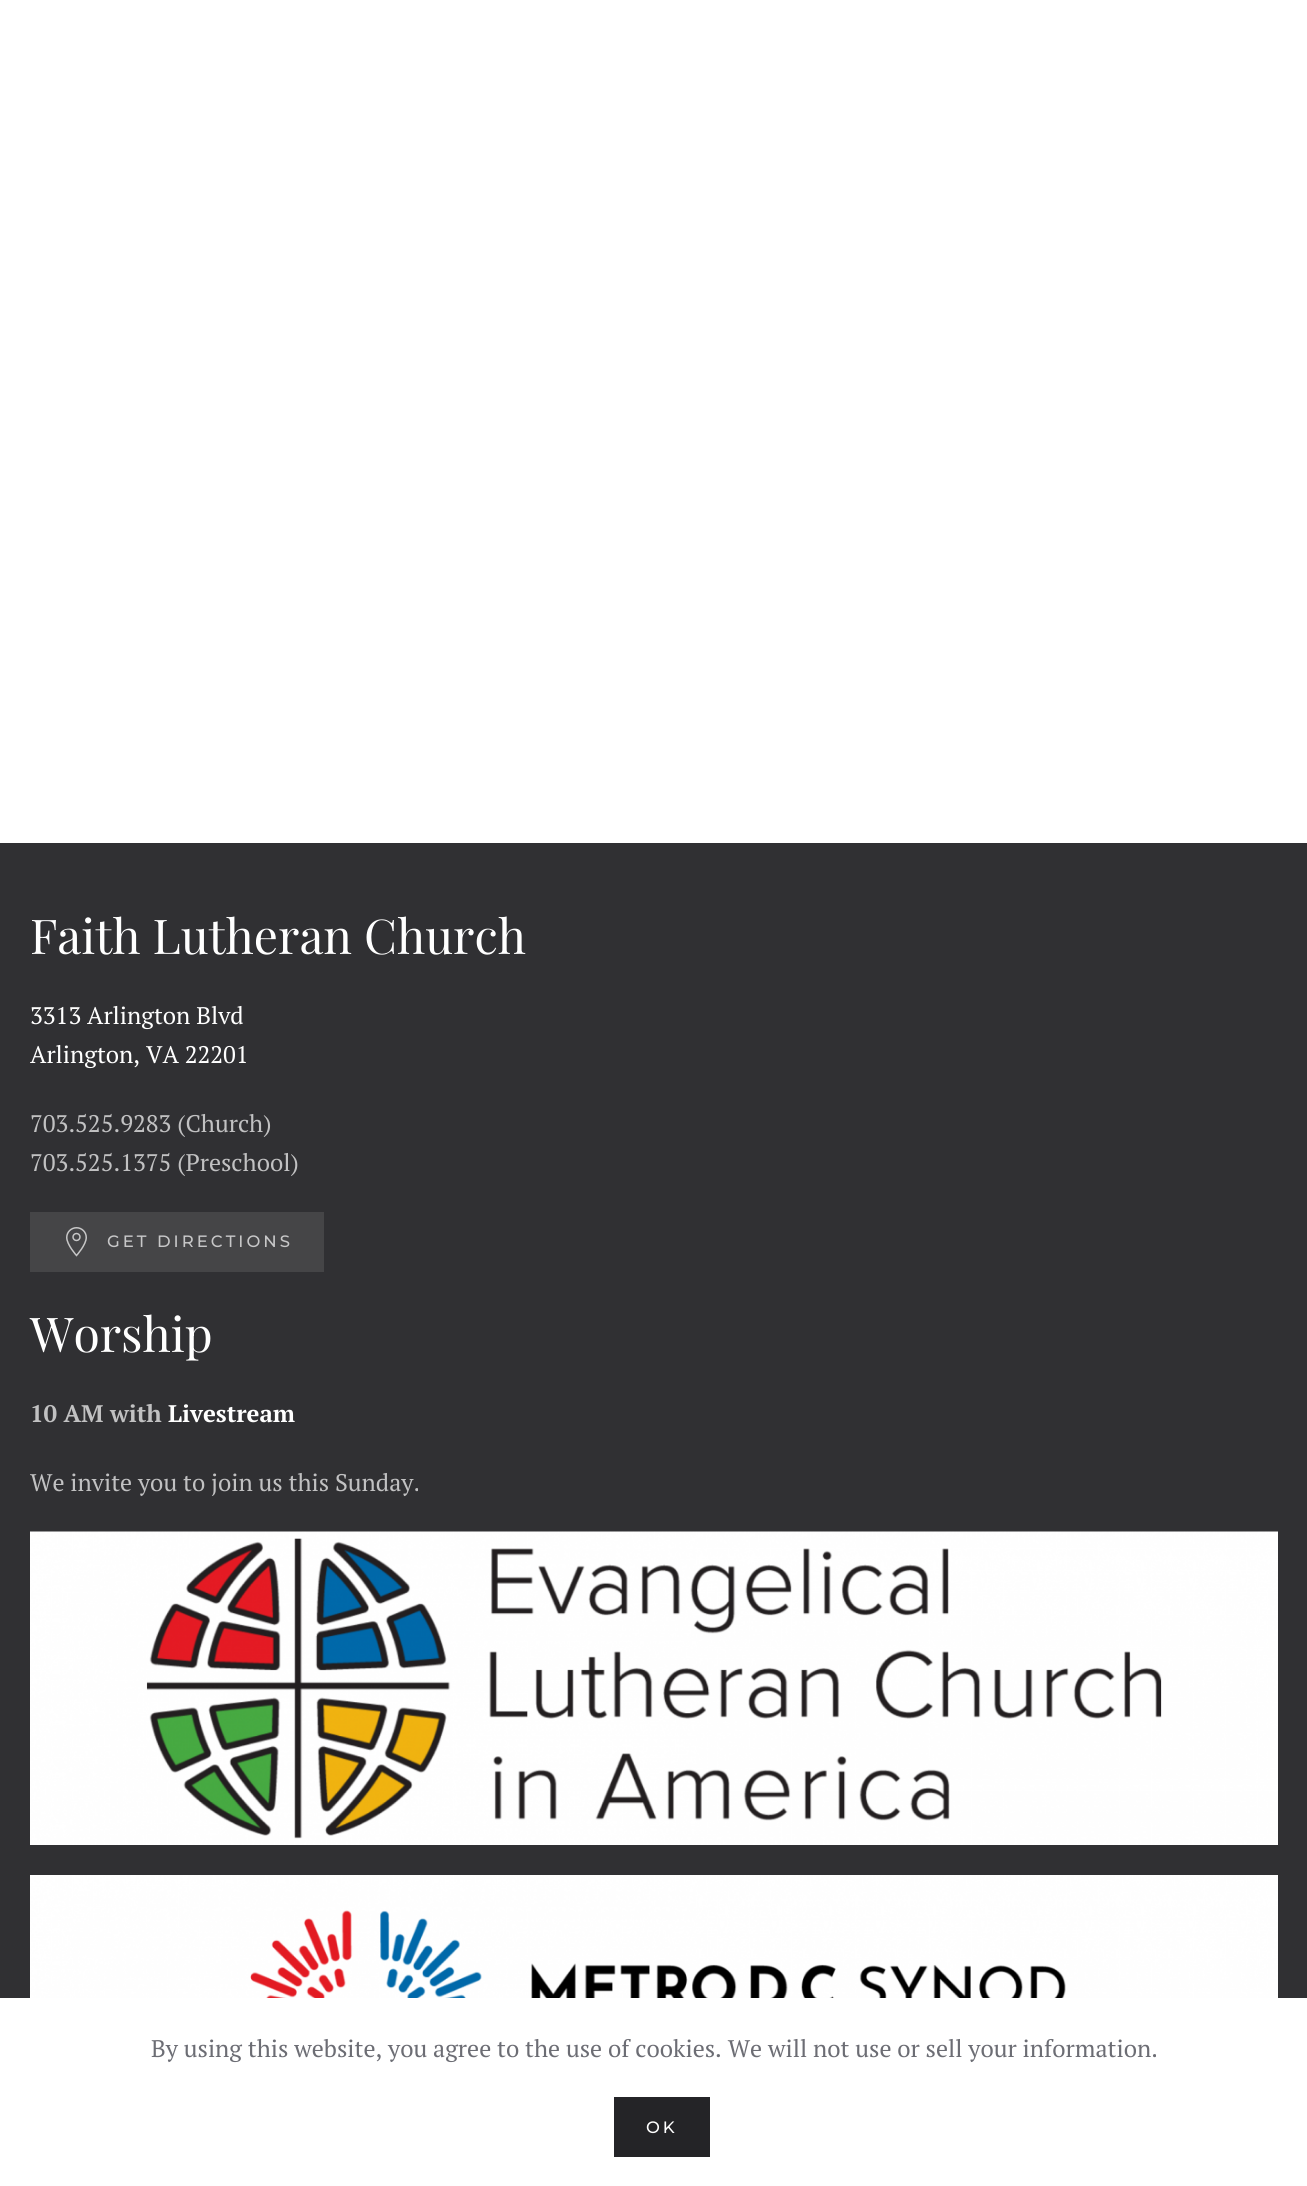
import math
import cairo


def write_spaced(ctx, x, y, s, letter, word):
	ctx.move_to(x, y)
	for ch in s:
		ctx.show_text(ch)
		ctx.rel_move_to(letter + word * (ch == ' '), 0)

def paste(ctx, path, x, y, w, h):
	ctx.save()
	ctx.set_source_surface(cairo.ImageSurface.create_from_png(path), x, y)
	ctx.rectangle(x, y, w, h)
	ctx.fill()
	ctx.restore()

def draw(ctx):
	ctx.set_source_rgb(1, 1, 1)
	ctx.paint()
	ctx.set_source_rgb(0.188, 0.188, 0.2)
	ctx.rectangle(0, 843, 1307, 1155)
	ctx.fill()
	ctx.select_font_face('Playfair Display')
	ctx.set_font_size(48)
	ctx.set_source_rgb(1, 1, 1)
	ctx.move_to(30, 954)
	ctx.show_text('Faith Lutheran Church')
	ctx.select_font_face('PT Serif')
	ctx.set_font_size(24)
	ctx.move_to(30, 1024)
	ctx.show_text('3313 Arlington Blvd')
	ctx.move_to(30, 1063)
	ctx.show_text('Arlington, VA 22201')
	ctx.set_source_rgb(0.757, 0.757, 0.761)
	ctx.move_to(30, 1132)
	ctx.show_text('703.525.9283 (Church)')
	ctx.move_to(30, 1171)
	ctx.show_text('703.525.1375 (Preschool)')
	ctx.set_source_rgb(0.271, 0.271, 0.278)
	ctx.rectangle(30, 1212, 294, 60)
	ctx.fill()
	paste(ctx, 'media/1.png', 66, 1227, 21, 30)
	ctx.select_font_face('Montserrat Thin')
	ctx.set_font_size(16.5)
	ctx.set_source_rgb(0.78, 0.78, 0.784)
	write_spaced(ctx, 107, 1247, 'GET DIRECTIONS', 3, 0)
	ctx.select_font_face('Playfair Display')
	ctx.set_font_size(48)
	ctx.set_source_rgb(1, 1, 1)
	ctx.move_to(30, 1352)
	ctx.show_text('Worship')
	ctx.select_font_face('PT Serif', cairo.FONT_SLANT_NORMAL, cairo.FONT_WEIGHT_BOLD)
	ctx.set_font_size(24)
	ctx.set_source_rgb(0.757, 0.757, 0.761)
	ctx.move_to(30, 1422)
	ctx.show_text('10 AM with')
	ctx.set_source_rgb(1, 1, 1)
	ctx.move_to(168, 1422)
	ctx.show_text('Livestream')
	ctx.select_font_face('PT Serif')
	ctx.set_source_rgb(0.757, 0.757, 0.761)
	ctx.move_to(30, 1491)
	ctx.show_text('We invite you to join us this Sunday.')
	paste(ctx, 'media/2.png', 30, 1531, 1248, 314)
	paste(ctx, 'media/3.png', 30, 1875, 1248, 123)
	ctx.set_source_rgb(0.424, 0.427, 0.455)
	ctx.move_to(151, 2057)
	ctx.show_text('By using this website, you agree to the use of cookies. We will not use or sell your information.')
	ctx.set_source_rgb(0.141, 0.141, 0.153)
	ctx.rectangle(614, 2097, 96, 60)
	ctx.fill()
	ctx.select_font_face('Montserrat Thin')
	ctx.set_font_size(16.5)
	ctx.set_source_rgb(1, 1, 1)
	write_spaced(ctx, 646, 2133, 'OK', 3, 0)


surface = cairo.ImageSurface(cairo.FORMAT_RGB24, 1307, 2186)
ctx = cairo.Context(surface)
options = cairo.FontOptions()
options.set_hint_metrics(cairo.HINT_METRICS_OFF)
options.set_hint_style(cairo.HINT_STYLE_NONE)
ctx.set_font_options(options)
ctx.set_miter_limit(4)
draw(ctx)
surface.write_to_png('image.png')
